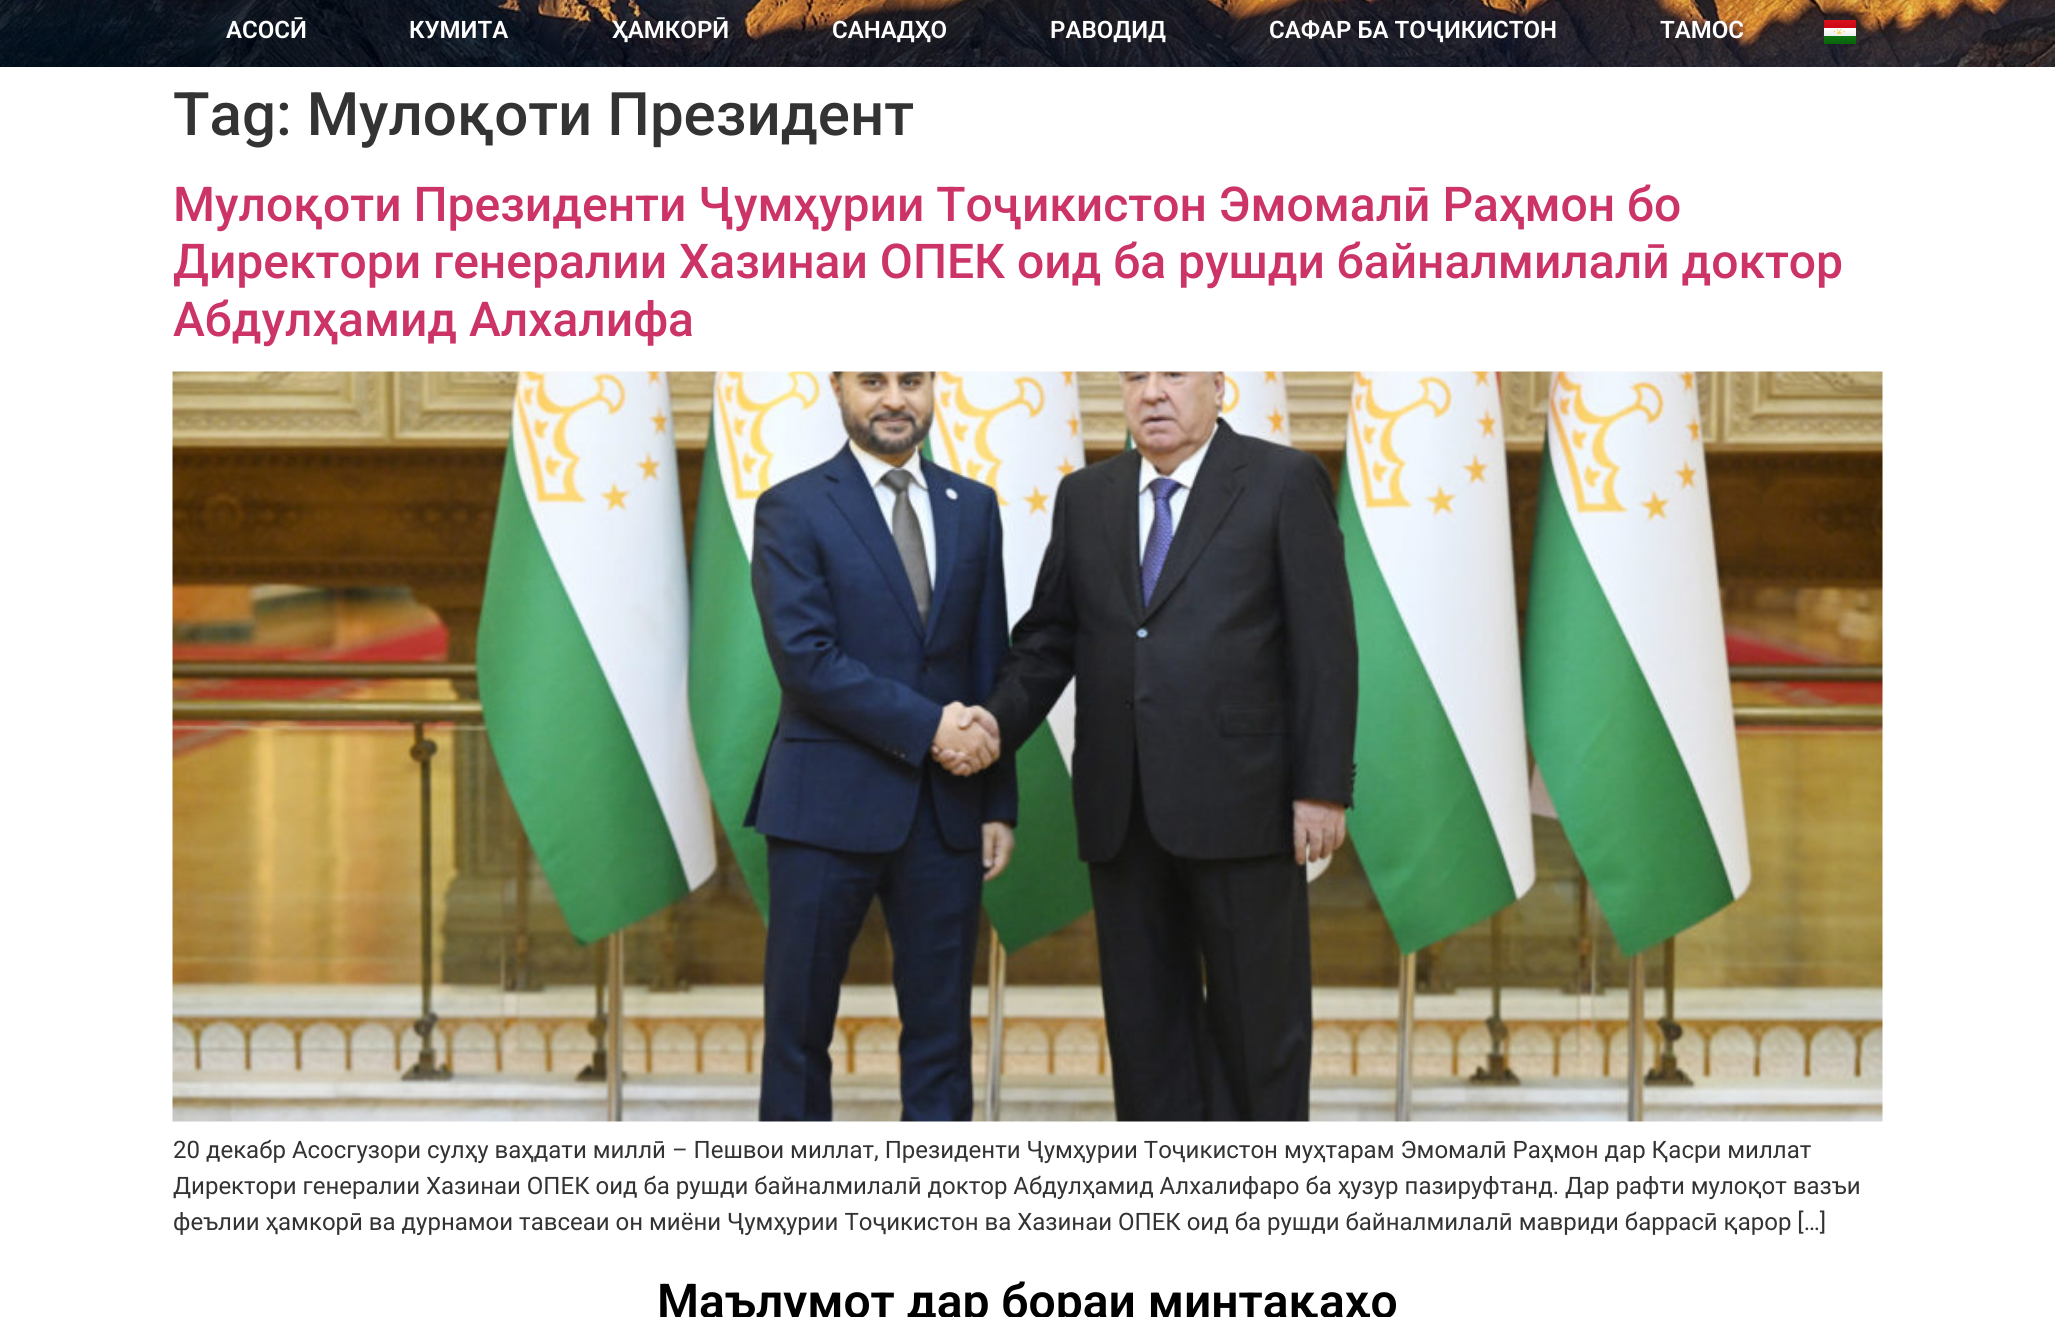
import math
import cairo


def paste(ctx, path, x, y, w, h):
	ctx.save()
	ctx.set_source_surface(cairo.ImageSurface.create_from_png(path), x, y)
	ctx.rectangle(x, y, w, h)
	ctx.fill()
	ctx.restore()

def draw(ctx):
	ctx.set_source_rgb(1, 1, 1)
	ctx.paint()
	paste(ctx, 'media/1.png', 0, 0, 2055, 67)
	ctx.select_font_face('Roboto SemiBold')
	ctx.set_font_size(24)
	ctx.set_source_rgb(1, 1, 1)
	for x, y, s in [
		(226, 38, 'АСОСӢ'),
		(409, 38, 'КУМИТА'),
		(612, 38, 'ҲАМКОРӢ'),
		(832, 38, 'САНАДҲО'),
		(1050, 38, 'РАВОДИД'),
		(1269, 38, 'САФАР БА ТОҶИКИСТОН'),
		(1660, 38, 'ТАМОС'),
	]:
		ctx.move_to(x, y)
		ctx.show_text(s)
	paste(ctx, 'media/2.png', 1824, 20, 32, 24)
	ctx.select_font_face('Roboto Medium')
	ctx.set_font_size(60)
	ctx.set_source_rgb(0.2, 0.2, 0.2)
	ctx.move_to(173, 135)
	ctx.show_text('Tag: Мулоқоти Президент')
	ctx.set_font_size(48)
	ctx.set_source_rgb(0.8, 0.2, 0.4)
	for x, y, s in [
		(173, 221, 'Мулоқоти Президенти Ҷумҳурии Тоҷикистон Эмомалӣ Раҳмон бо'),
		(173, 278, 'Директори генералии Хазинаи ОПЕК оид ба рушди байналмилалӣ доктор'),
		(173, 336, 'Абдулҳамид Алхалифа'),
	]:
		ctx.move_to(x, y)
		ctx.show_text(s)
	paste(ctx, 'media/3.png', 172, 371, 1711, 751)
	ctx.select_font_face('Roboto')
	ctx.set_font_size(24)
	ctx.set_source_rgb(0.2, 0.2, 0.2)
	for x, y, s in [
		(173, 1158, '20 декабр Асосгузори сулҳу ваҳдати миллӣ – Пешвои миллат, Президенти Ҷумҳурии Тоҷикистон муҳтарам Эмомалӣ Раҳмон дар Қасри миллат'),
		(173, 1194, 'Директори генералии Хазинаи ОПЕК оид ба рушди байналмилалӣ доктор Абдулҳамид Алхалифаро ба ҳузур пазируфтанд. Дар рафти мулоқот вазъи'),
		(173, 1230, 'феълии ҳамкорӣ ва дурнамои тавсеаи он миёни Ҷумҳурии Тоҷикистон ва Хазинаи ОПЕК оид ба рушди байналмилалӣ мавриди баррасӣ қарор […]'),
	]:
		ctx.move_to(x, y)
		ctx.show_text(s)
	ctx.select_font_face('Roboto SemiBold')
	ctx.set_font_size(48)
	ctx.set_source_rgb(0, 0, 0)
	ctx.move_to(657, 1318)
	ctx.show_text('Маълумот дар бораи минтақаҳо')


surface = cairo.ImageSurface(cairo.FORMAT_RGB24, 2055, 1317)
ctx = cairo.Context(surface)
options = cairo.FontOptions()
options.set_hint_metrics(cairo.HINT_METRICS_OFF)
options.set_hint_style(cairo.HINT_STYLE_NONE)
ctx.set_font_options(options)
ctx.set_miter_limit(4)
draw(ctx)
surface.write_to_png('image.png')
